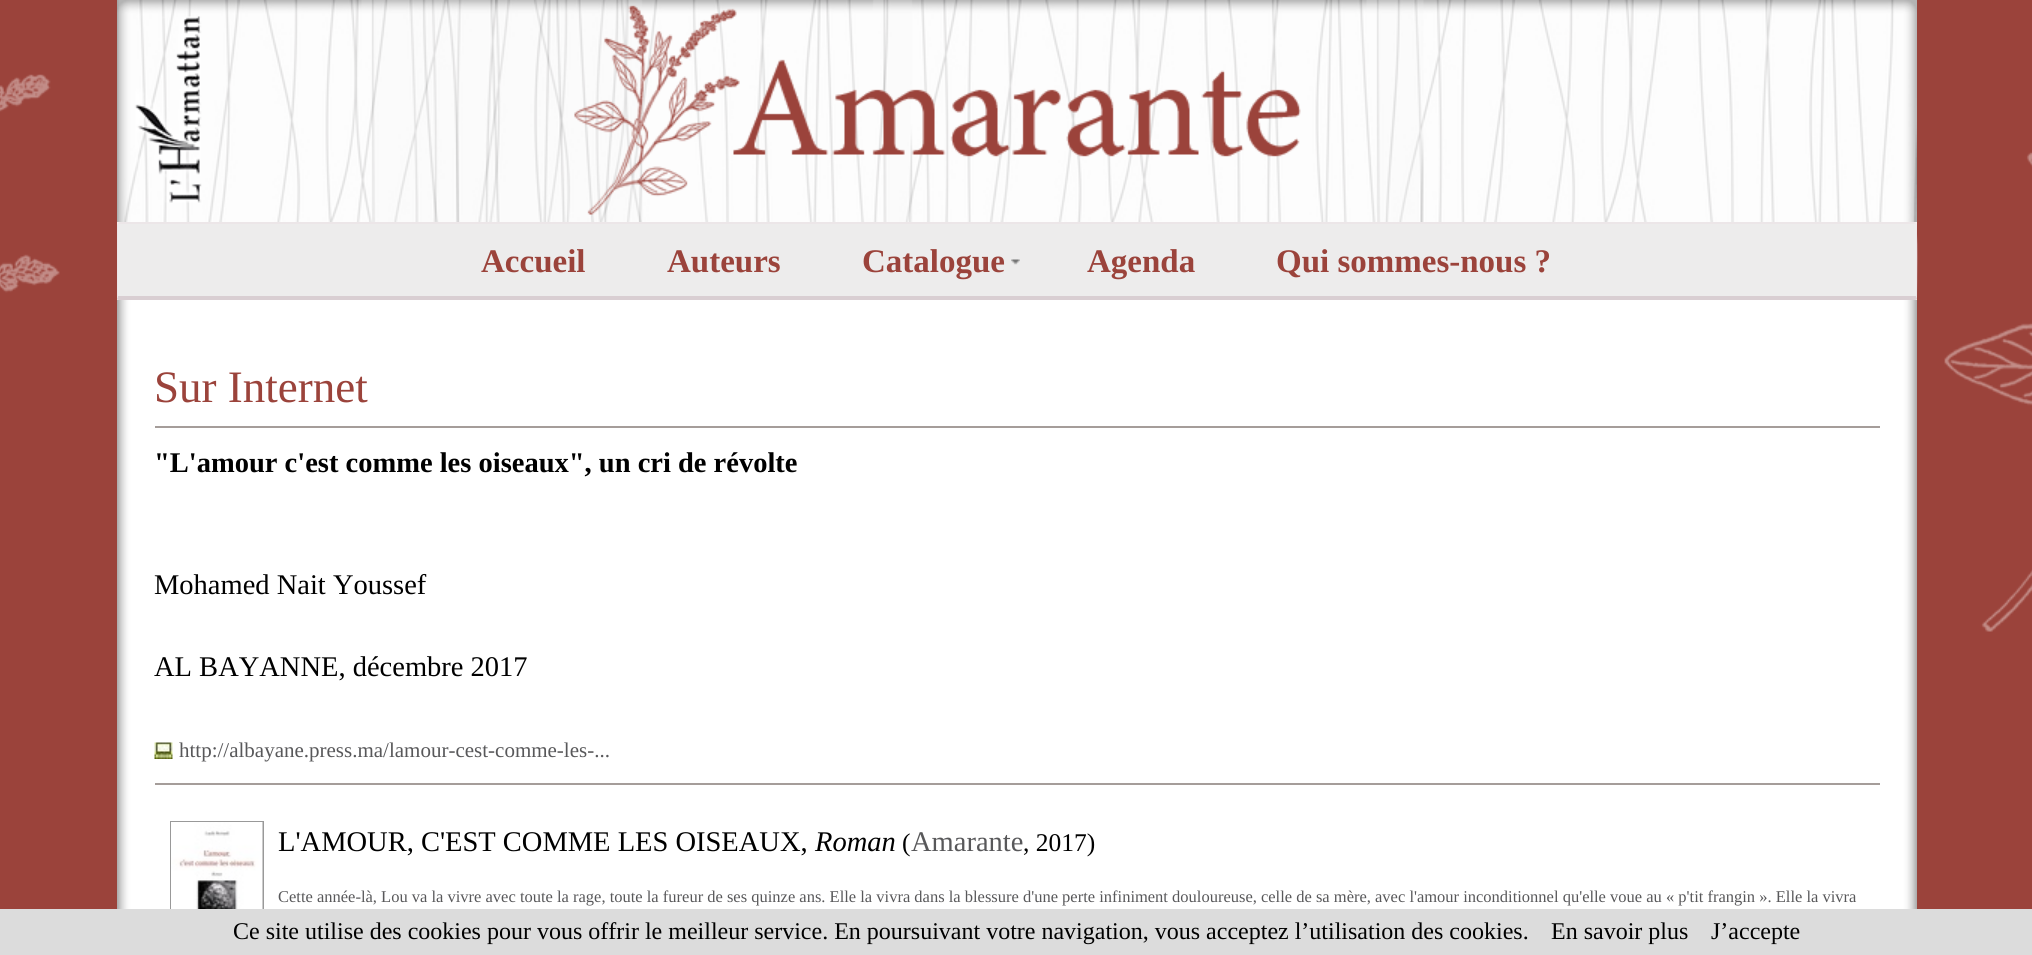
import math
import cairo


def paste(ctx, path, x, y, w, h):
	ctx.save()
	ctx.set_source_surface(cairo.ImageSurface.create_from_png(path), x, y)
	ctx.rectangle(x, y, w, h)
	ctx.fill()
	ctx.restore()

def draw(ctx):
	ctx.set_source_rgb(0.608, 0.263, 0.231)
	ctx.paint()
	paste(ctx, 'media/1.png', 0, 74, 2032, 558)
	ctx.set_source_rgb(0.965, 0.933, 0.929)
	ctx.rectangle(117, 222, 1800, 78)
	ctx.fill()
	paste(ctx, 'media/2.png', 117, 0, 1800, 222)
	ctx.set_source_rgb(0.929, 0.925, 0.925)
	ctx.new_path()
	ctx.move_to(120, 224)
	ctx.line_to(1914, 224)
	ctx.curve_to(1915, 224, 1916, 224, 1916, 225)
	ctx.line_to(1916, 296)
	ctx.line_to(118, 296)
	ctx.line_to(118, 225)
	ctx.curve_to(118, 224, 119, 224, 120, 224)
	ctx.close_path()
	ctx.fill()
	ctx.set_source_rgb(0.925, 0.902, 0.91)
	ctx.new_path()
	ctx.move_to(120, 222)
	ctx.line_to(118, 223)
	ctx.line_to(119, 224)
	ctx.line_to(1915, 224)
	ctx.line_to(1916, 223)
	ctx.line_to(1914, 222)
	ctx.close_path()
	ctx.fill()
	ctx.new_path()
	ctx.move_to(1917, 297)
	ctx.curve_to(1917, 289, 1918, 224, 1916, 223)
	ctx.line_to(1915, 224)
	ctx.line_to(1916, 225)
	ctx.line_to(1916, 296)
	ctx.line_to(1917, 299)
	ctx.close_path()
	ctx.fill()
	ctx.set_source_rgb(0.851, 0.808, 0.824)
	ctx.new_path()
	ctx.move_to(120, 300)
	ctx.line_to(1914, 300)
	ctx.curve_to(1915, 300, 1916, 300, 1917, 299)
	ctx.line_to(1916, 296)
	ctx.line_to(118, 296)
	ctx.line_to(117, 299)
	ctx.curve_to(118, 300, 119, 300, 120, 300)
	ctx.close_path()
	ctx.fill()
	ctx.set_source_rgb(0.925, 0.902, 0.91)
	ctx.new_path()
	ctx.move_to(117, 225)
	ctx.line_to(117, 297)
	ctx.line_to(117, 299)
	ctx.line_to(118, 296)
	ctx.line_to(118, 225)
	ctx.line_to(119, 224)
	ctx.line_to(118, 223)
	ctx.close_path()
	ctx.fill()
	ctx.select_font_face('Liberation Serif', cairo.FONT_SLANT_NORMAL, cairo.FONT_WEIGHT_BOLD)
	ctx.set_font_size(33)
	ctx.set_source_rgb(0.608, 0.263, 0.231)
	ctx.move_to(481, 272)
	ctx.show_text('Accueil')
	ctx.move_to(667, 272)
	ctx.show_text('Auteurs')
	paste(ctx, 'media/3.png', 1011, 259, 9, 6)
	for x, y, s in [
		(862, 272, 'Catalogue'),
		(1087, 272, 'Agenda'),
		(1276, 272, 'Qui sommes-nous ?'),
	]:
		ctx.move_to(x, y)
		ctx.show_text(s)
	paste(ctx, 'media/4.png', 117, 300, 1800, 609)
	ctx.select_font_face('Liberation Serif')
	ctx.set_font_size(45)
	ctx.move_to(154, 402)
	ctx.show_text('Sur Internet')
	ctx.set_source_rgb(0.647, 0.616, 0.604)
	ctx.rectangle(155, 426, 1725, 2)
	ctx.fill()
	ctx.select_font_face('Liberation Serif', cairo.FONT_SLANT_NORMAL, cairo.FONT_WEIGHT_BOLD)
	ctx.set_font_size(28.5)
	ctx.set_source_rgb(0, 0, 0)
	ctx.move_to(154, 472)
	ctx.show_text('"L\'amour c\'est comme les oiseaux", un cri de révolte')
	ctx.select_font_face('Liberation Serif')
	ctx.move_to(154, 594)
	ctx.show_text('Mohamed Nait Youssef')
	ctx.move_to(154, 676)
	ctx.show_text('AL BAYANNE, décembre 2017')
	paste(ctx, 'media/5.png', 154, 742, 19, 17)
	ctx.set_font_size(21)
	ctx.set_source_rgb(0.345, 0.345, 0.353)
	ctx.move_to(179, 757)
	ctx.show_text('http://albayane.press.ma/lamour-cest-comme-les-...')
	ctx.set_source_rgb(0.647, 0.616, 0.604)
	ctx.rectangle(155, 783, 1725, 2)
	ctx.fill()
	ctx.rectangle(171, 822, 92, 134)
	ctx.set_source_rgb(0.6, 0.6, 0.6)
	ctx.stroke()
	paste(ctx, 'media/6.png', 171, 822, 92, 87)
	ctx.set_font_size(28.5)
	ctx.set_source_rgb(0, 0, 0)
	ctx.move_to(278, 851)
	ctx.show_text('L\'AMOUR, C\'EST COMME LES OISEAUX,')
	ctx.select_font_face('Liberation Serif', cairo.FONT_SLANT_ITALIC)
	ctx.move_to(815, 851)
	ctx.show_text('Roman')
	ctx.select_font_face('Liberation Serif')
	ctx.set_font_size(25.5)
	ctx.move_to(902, 851)
	ctx.show_text('(')
	ctx.set_font_size(28.5)
	ctx.set_source_rgb(0.345, 0.345, 0.353)
	ctx.move_to(911, 851)
	ctx.show_text('Amarante')
	ctx.set_font_size(25.5)
	ctx.set_source_rgb(0, 0, 0)
	ctx.move_to(1023, 851)
	ctx.show_text(', 2017)')
	ctx.set_font_size(16.5)
	ctx.set_source_rgb(0.345, 0.345, 0.353)
	ctx.move_to(278, 902)
	ctx.show_text('Cette année-là, Lou va la vivre avec toute la rage, toute la fureur de ses quinze ans. Elle la vivra dans la blessure d\'une perte infiniment douloureuse, celle de sa mère, avec l\'amour inconditionnel qu\'elle voue au « p\'tit frangin ». Elle la vivra')
	ctx.set_source_rgb(0.863, 0.863, 0.863)
	ctx.rectangle(0, 909, 2032, 46)
	ctx.fill()
	ctx.set_font_size(24)
	ctx.set_source_rgb(0, 0, 0)
	for x, y, s in [
		(233, 939, 'Ce site utilise des cookies pour vous offrir le meilleur service. En poursuivant votre navigation, vous acceptez l’utilisation des cookies.'),
		(1551, 939, 'En savoir plus'),
		(1711, 939, 'J’accepte'),
	]:
		ctx.move_to(x, y)
		ctx.show_text(s)


surface = cairo.ImageSurface(cairo.FORMAT_RGB24, 2032, 955)
ctx = cairo.Context(surface)
options = cairo.FontOptions()
options.set_hint_metrics(cairo.HINT_METRICS_OFF)
options.set_hint_style(cairo.HINT_STYLE_NONE)
ctx.set_font_options(options)
ctx.set_miter_limit(4)
draw(ctx)
surface.write_to_png('image.png')
